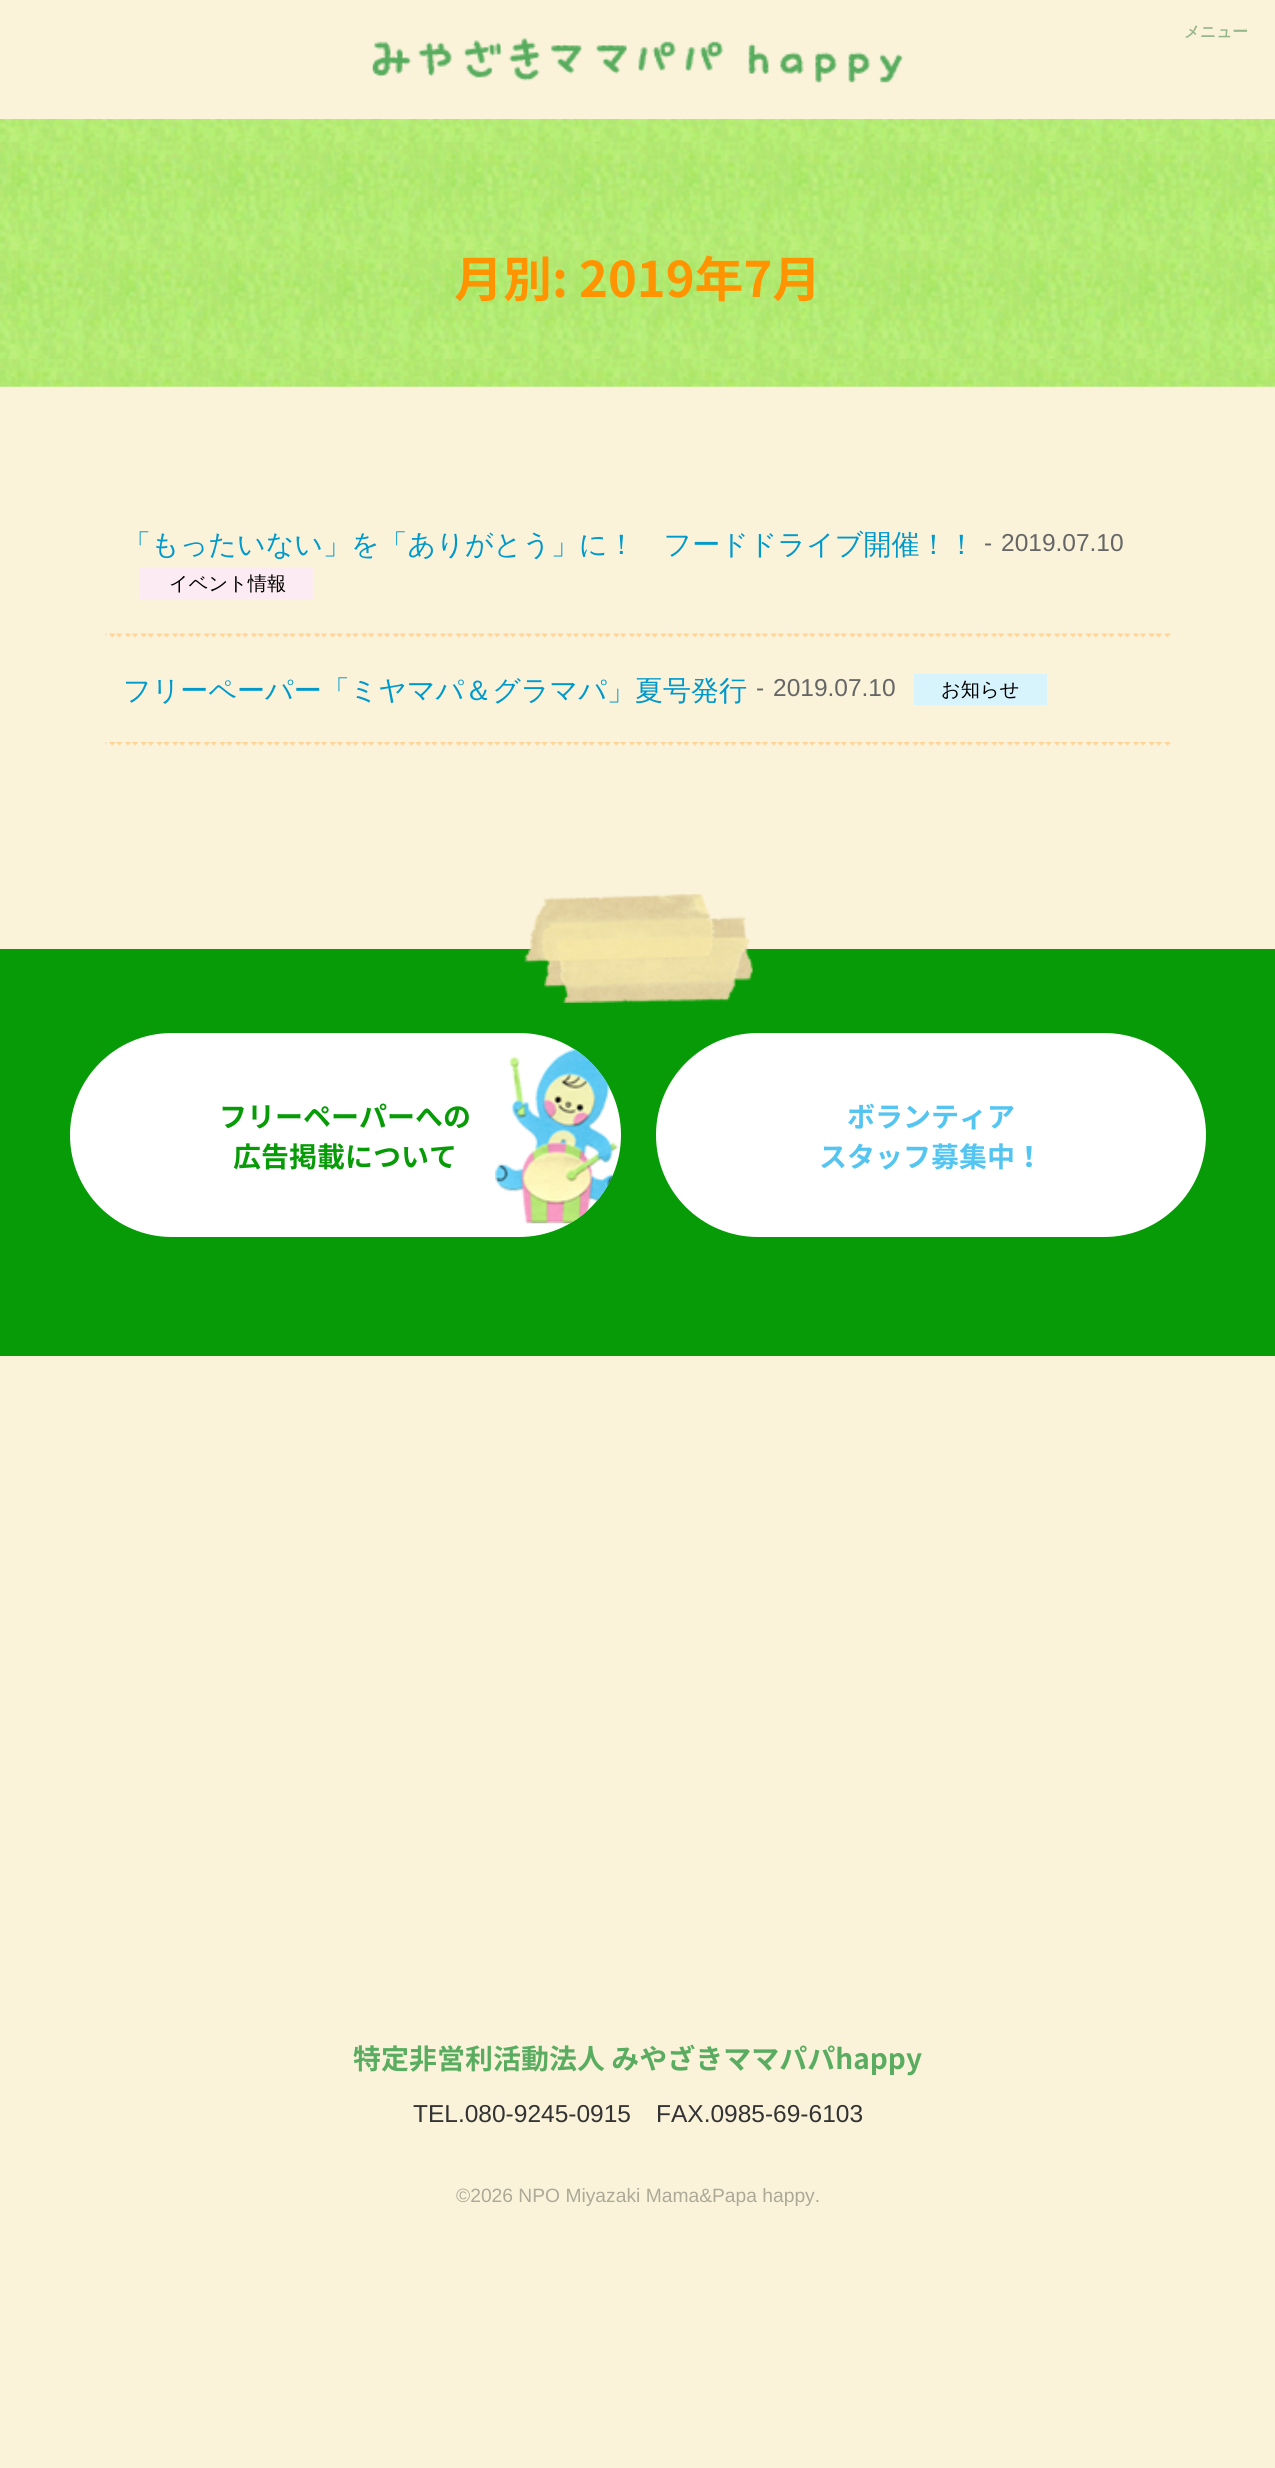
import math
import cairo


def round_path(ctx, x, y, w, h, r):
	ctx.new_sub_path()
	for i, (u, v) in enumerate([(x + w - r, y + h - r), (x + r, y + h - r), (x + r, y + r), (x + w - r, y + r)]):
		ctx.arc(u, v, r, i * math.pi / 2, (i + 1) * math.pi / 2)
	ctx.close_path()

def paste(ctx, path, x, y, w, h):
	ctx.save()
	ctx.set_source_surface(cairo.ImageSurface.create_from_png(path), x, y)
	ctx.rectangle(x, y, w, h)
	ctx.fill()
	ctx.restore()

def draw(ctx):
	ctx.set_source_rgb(0.98, 0.953, 0.855)
	ctx.paint()
	ctx.select_font_face('WenQuanYi Zen Hei', cairo.FONT_SLANT_NORMAL, cairo.FONT_WEIGHT_BOLD)
	ctx.set_font_size(15.75)
	ctx.set_source_rgb(0.584, 0.714, 0.545)
	ctx.move_to(1184, 37)
	ctx.show_text('メニュー')
	paste(ctx, 'media/1.png', 372, 38, 531, 45)
	paste(ctx, 'media/2.png', 0, 119, 1275, 268)
	ctx.select_font_face('Noto Sans JP', cairo.FONT_SLANT_NORMAL, cairo.FONT_WEIGHT_BOLD)
	ctx.set_font_size(49)
	ctx.set_source_rgb(1, 0.58, 0)
	ctx.move_to(454, 297)
	ctx.show_text('月別: 2019年7月')
	paste(ctx, 'media/3.png', 105, 633, 1066, 4)
	ctx.select_font_face('WenQuanYi Zen Hei Medium')
	ctx.set_font_size(28)
	ctx.set_source_rgb(0, 0.6, 0.8)
	ctx.move_to(123, 554)
	ctx.show_text('「もったいない」を「ありがとう」に！　フードドライブ開催！！')
	ctx.select_font_face('Liberation Sans')
	ctx.set_font_size(24.5)
	ctx.set_source_rgb(0.4, 0.4, 0.4)
	ctx.move_to(984, 551)
	ctx.show_text('-')
	ctx.move_to(1001, 551)
	ctx.show_text('2019.07.10')
	ctx.set_source_rgb(0.988, 0.918, 0.949)
	ctx.rectangle(140, 567, 173, 32)
	ctx.fill()
	ctx.select_font_face('WenQuanYi Zen Hei Medium')
	ctx.set_font_size(19.25)
	ctx.set_source_rgb(0, 0, 0)
	ctx.move_to(169, 590)
	ctx.show_text('イベント情報')
	paste(ctx, 'media/4.png', 105, 742, 1066, 4)
	ctx.set_font_size(28)
	ctx.set_source_rgb(0, 0.6, 0.8)
	ctx.move_to(123, 700)
	ctx.show_text('フリーペーパー「ミヤマパ＆グラマパ」夏号発行')
	ctx.select_font_face('Liberation Sans')
	ctx.set_font_size(24.5)
	ctx.set_source_rgb(0.4, 0.4, 0.4)
	ctx.move_to(756, 696)
	ctx.show_text('-')
	ctx.move_to(773, 696)
	ctx.show_text('2019.07.10')
	ctx.set_source_rgb(0.843, 0.953, 0.988)
	ctx.rectangle(914, 674, 133, 31)
	ctx.fill()
	ctx.select_font_face('WenQuanYi Zen Hei Medium')
	ctx.set_font_size(19.25)
	ctx.set_source_rgb(0, 0, 0)
	ctx.move_to(941, 696)
	ctx.show_text('お知らせ')
	ctx.set_source_rgb(0.031, 0.612, 0.031)
	ctx.rectangle(0, 949, 1275, 407)
	ctx.fill()
	paste(ctx, 'media/5.png', 524, 894, 229, 109)
	ctx.set_source_rgb(1, 1, 1)
	round_path(ctx, 70, 1033, 551, 204, 102)
	ctx.fill()
	paste(ctx, 'media/6.png', 495, 1048, 124, 176)
	ctx.select_font_face('Noto Sans JP', cairo.FONT_SLANT_NORMAL, cairo.FONT_WEIGHT_BOLD)
	ctx.set_font_size(28)
	ctx.set_source_rgb(0.031, 0.612, 0.031)
	ctx.move_to(219, 1127)
	ctx.show_text('フリーペーパーへの')
	ctx.move_to(233, 1167)
	ctx.show_text('広告掲載について')
	ctx.set_source_rgb(1, 1, 1)
	round_path(ctx, 656, 1033, 550, 204, 102)
	ctx.fill()
	ctx.set_source_rgb(0.329, 0.769, 0.945)
	ctx.move_to(847, 1127)
	ctx.show_text('ボランティア')
	ctx.move_to(819, 1167)
	ctx.show_text('スタッフ募集中！')
	ctx.set_source_rgb(0.353, 0.678, 0.376)
	ctx.move_to(353, 2069)
	ctx.show_text('特定非営利活動法人 みやざきママパパhappy')
	ctx.select_font_face('Liberation Sans')
	ctx.set_font_size(24.5)
	ctx.set_source_rgb(0.2, 0.2, 0.2)
	ctx.move_to(413, 2122)
	ctx.show_text('TEL.080-9245-0915')
	ctx.move_to(656, 2122)
	ctx.show_text('FAX.0985-69-6103')
	ctx.set_font_size(19.25)
	ctx.set_source_rgb(0.678, 0.663, 0.592)
	ctx.move_to(456, 2202)
	ctx.show_text('©2026 NPO Miyazaki Mama&Papa happy.')


surface = cairo.ImageSurface(cairo.FORMAT_RGB24, 1275, 2468)
ctx = cairo.Context(surface)
options = cairo.FontOptions()
options.set_hint_metrics(cairo.HINT_METRICS_OFF)
options.set_hint_style(cairo.HINT_STYLE_NONE)
ctx.set_font_options(options)
ctx.set_miter_limit(4)
draw(ctx)
surface.write_to_png('image.png')
